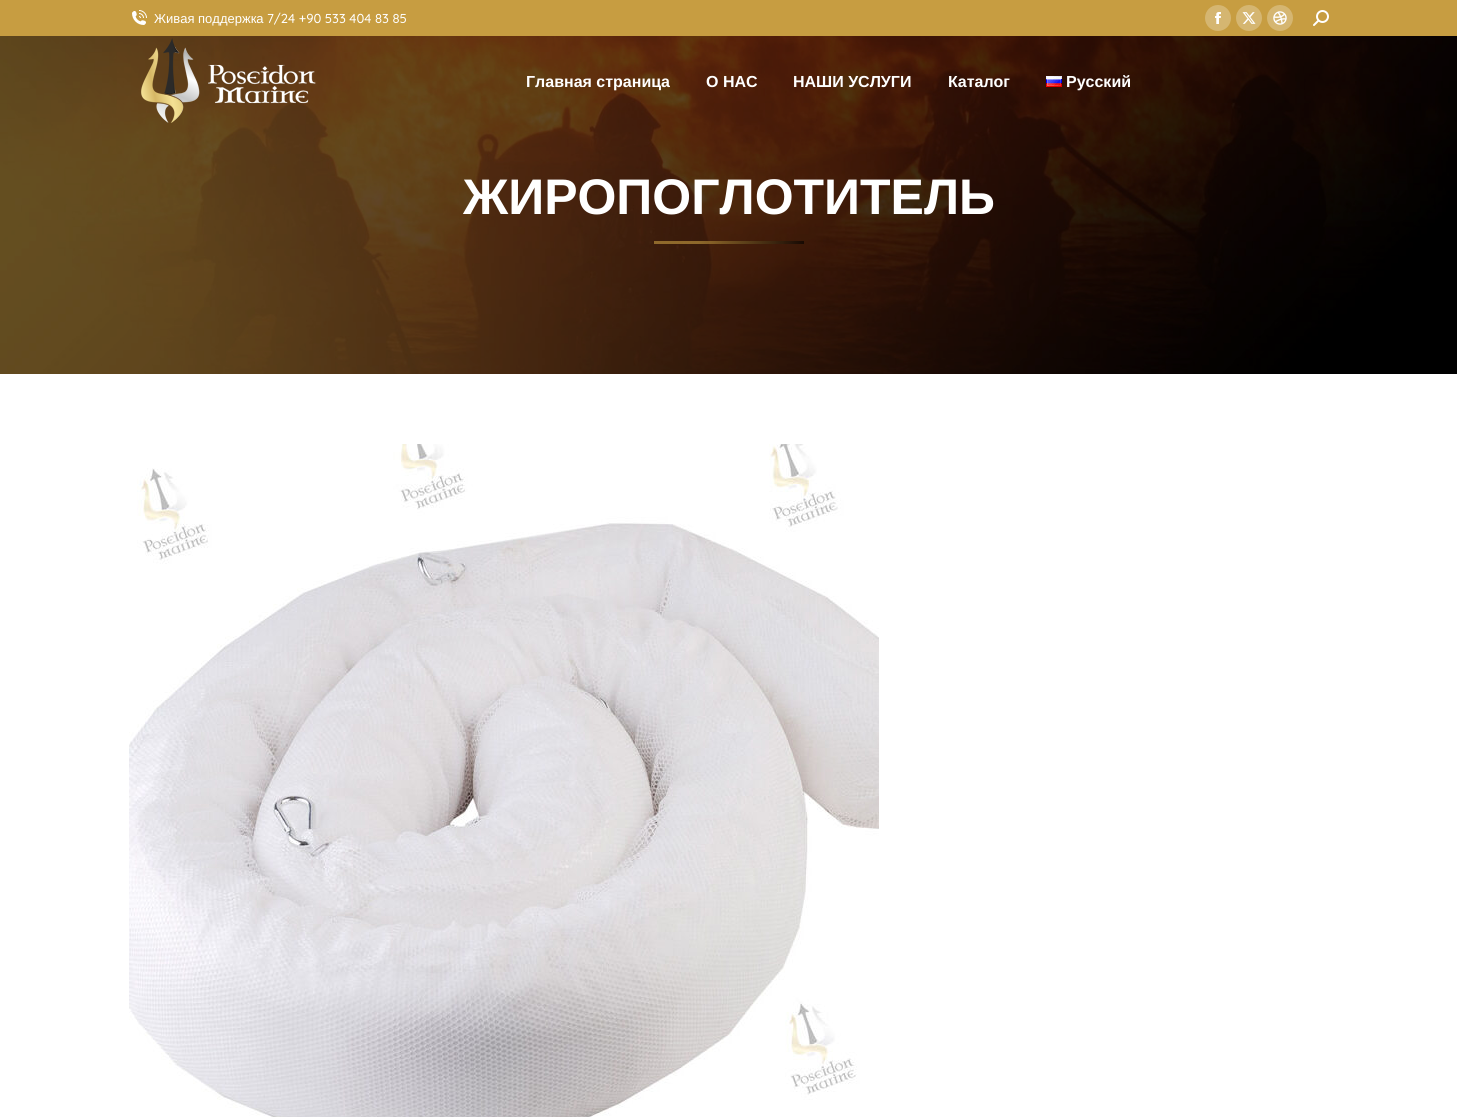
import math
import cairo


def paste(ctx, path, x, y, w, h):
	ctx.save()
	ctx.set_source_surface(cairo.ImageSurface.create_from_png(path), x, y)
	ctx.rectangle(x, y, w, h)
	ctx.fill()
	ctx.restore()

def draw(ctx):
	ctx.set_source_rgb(1, 1, 1)
	ctx.paint()
	ctx.set_source_rgb(0.78, 0.616, 0.255)
	ctx.rectangle(0, 0, 1457, 36)
	ctx.fill()
	paste(ctx, 'media/1.png', 132, 10, 15, 15)
	ctx.select_font_face('Liberation Sans')
	ctx.set_font_size(13)
	ctx.set_source_rgb(1, 1, 1)
	ctx.move_to(154, 23)
	ctx.show_text('Живая поддержка')
	ctx.select_font_face('Quicksand Medium')
	ctx.move_to(267, 23)
	ctx.show_text('7/24 +90 533 404 83 85')
	ctx.set_source_rgb(0.835, 0.714, 0.443)
	ctx.new_path()
	ctx.arc(1218, 18, 13, 0, 2 * math.pi)
	ctx.fill()
	paste(ctx, 'media/2.png', 1215, 12, 6, 12)
	ctx.arc(1249, 18, 13, 0, 2 * math.pi)
	ctx.fill()
	paste(ctx, 'media/3.png', 1242, 12, 14, 12)
	ctx.arc(1280, 18, 13, 0, 2 * math.pi)
	ctx.fill()
	paste(ctx, 'media/4.png', 1273, 11, 14, 14)
	paste(ctx, 'media/5.png', 1313, 10, 16, 16)
	paste(ctx, 'media/8.png', 0, 36, 1457, 338)
	paste(ctx, 'media/6.png', 141, 38, 175, 85)
	ctx.select_font_face('Liberation Sans', cairo.FONT_SLANT_NORMAL, cairo.FONT_WEIGHT_BOLD)
	ctx.set_font_size(16)
	ctx.set_source_rgb(1, 1, 1)
	for x, y, s in [
		(526, 87, 'Главная страница'),
		(706, 87, 'О НАС'),
		(793, 87, 'НАШИ УСЛУГИ'),
		(948, 87, 'Каталог'),
	]:
		ctx.move_to(x, y)
		ctx.show_text(s)
	paste(ctx, 'media/7.png', 1046, 76, 16, 11)
	ctx.move_to(1066, 87)
	ctx.show_text('Русский')
	ctx.set_font_size(50)
	ctx.move_to(463, 214)
	ctx.show_text('ЖИРОПОГЛОТИТЕЛЬ')
	paste(ctx, 'media/9.png', 654, 241, 150, 3)
	paste(ctx, 'media/10.png', 129, 444, 750, 673)


surface = cairo.ImageSurface(cairo.FORMAT_RGB24, 1457, 1117)
ctx = cairo.Context(surface)
options = cairo.FontOptions()
options.set_hint_metrics(cairo.HINT_METRICS_OFF)
options.set_hint_style(cairo.HINT_STYLE_NONE)
ctx.set_font_options(options)
ctx.set_miter_limit(4)
draw(ctx)
surface.write_to_png('image.png')
